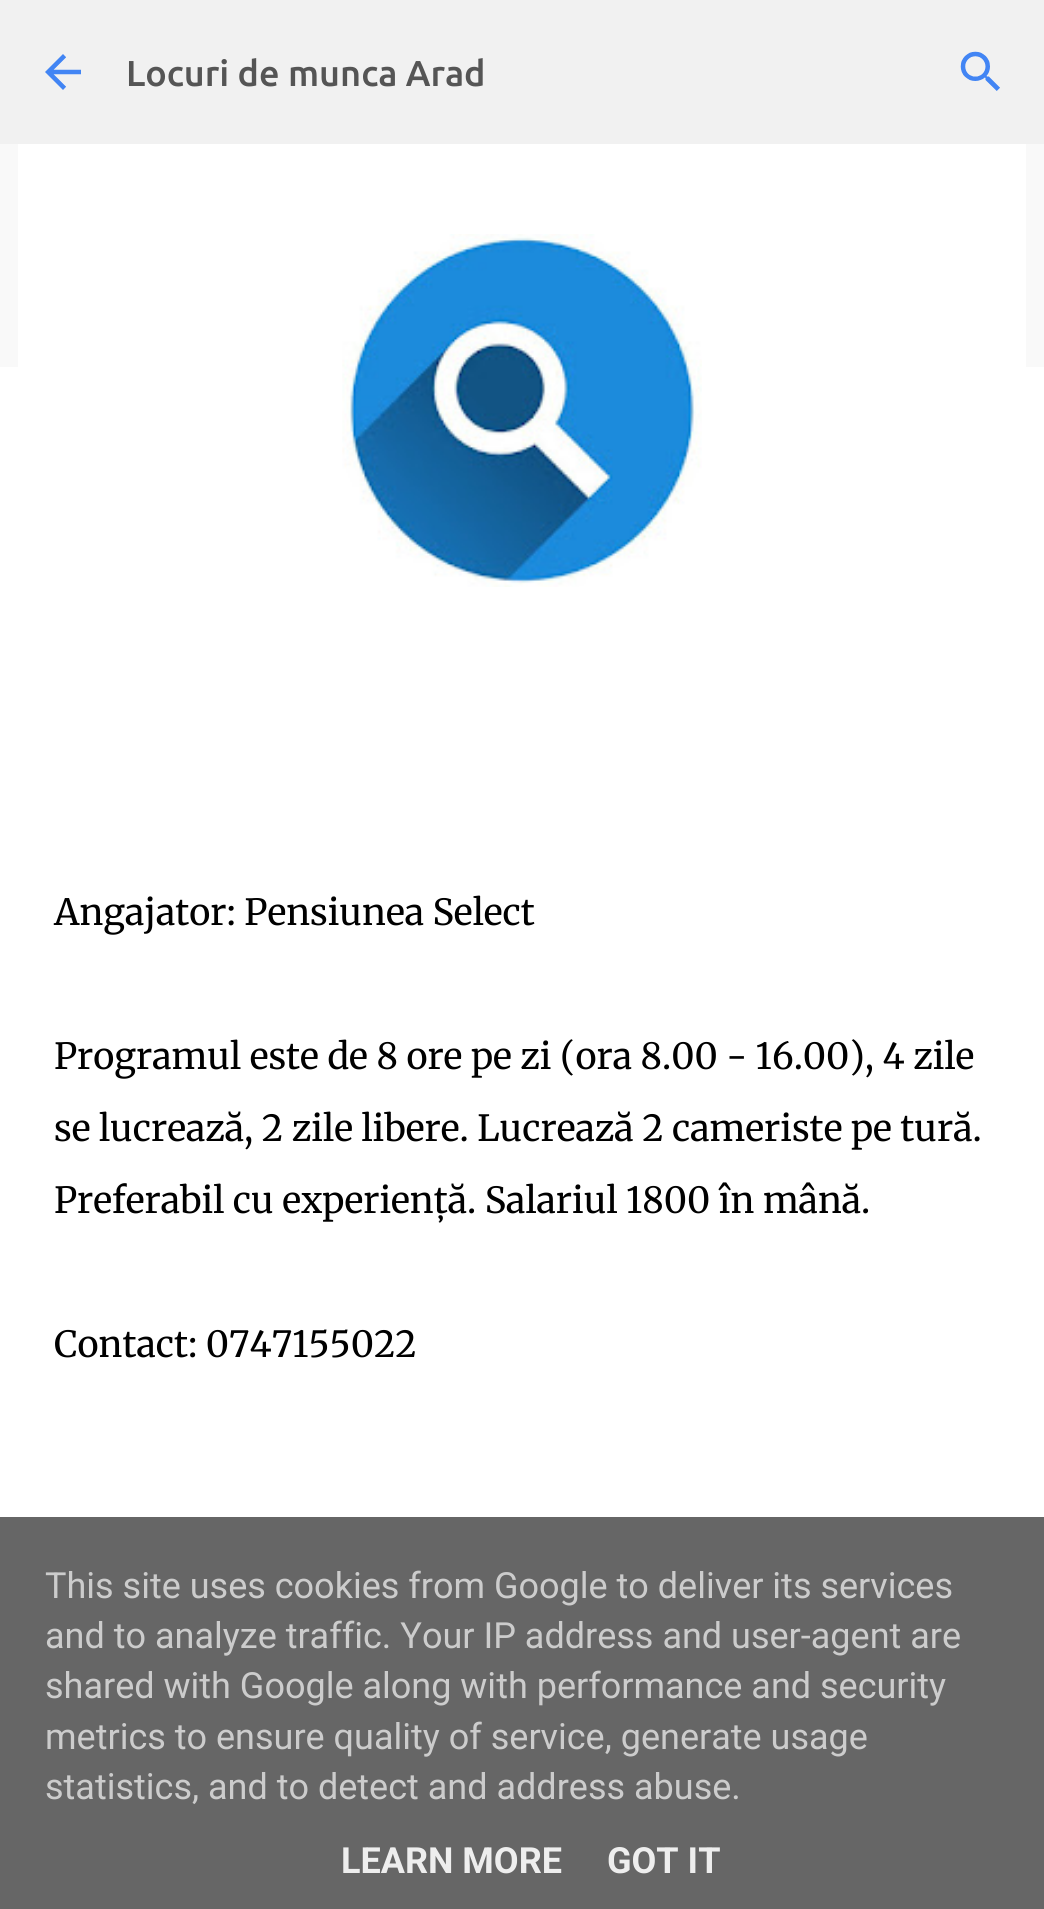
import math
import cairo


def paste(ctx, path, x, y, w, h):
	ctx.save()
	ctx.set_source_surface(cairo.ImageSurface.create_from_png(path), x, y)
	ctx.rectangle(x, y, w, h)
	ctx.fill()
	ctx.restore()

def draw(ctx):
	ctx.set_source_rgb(0.973, 0.973, 0.973)
	ctx.paint()
	ctx.set_source_rgb(0.945, 0.945, 0.945)
	ctx.rectangle(0, 0, 1044, 144)
	ctx.fill()
	paste(ctx, 'media/1.png', 45, 54, 36, 36)
	ctx.select_font_face('Ubuntu Medium')
	ctx.set_font_size(36)
	ctx.set_source_rgb(0.333, 0.333, 0.333)
	ctx.move_to(126, 86)
	ctx.show_text('Locuri de munca Arad')
	paste(ctx, 'media/2.png', 960, 51, 40, 40)
	ctx.set_source_rgb(1, 1, 1)
	ctx.rectangle(0, 367, 1044, 1150)
	ctx.fill()
	ctx.rectangle(18, 144, 1008, 223)
	ctx.fill()
	paste(ctx, 'media/3.png', 342, 234, 360, 353)
	ctx.select_font_face('Merriweather')
	ctx.set_source_rgb(0, 0, 0)
	for x, y, s in [
		(54, 925, 'Angajator: Pensiunea Select'),
		(54, 1069, 'Programul este de 8 ore pe zi (ora 8.00 - 16.00), 4 zile'),
		(54, 1141, 'se lucrează, 2 zile libere. Lucrează 2 cameriste pe tură.'),
		(54, 1213, 'Preferabil cu experiență. Salariul 1800 în mână.'),
		(54, 1357, 'Contact: 0747155022'),
	]:
		ctx.move_to(x, y)
		ctx.show_text(s)
	ctx.set_source_rgb(0.4, 0.4, 0.4)
	ctx.rectangle(0, 1517, 1044, 392)
	ctx.fill()
	ctx.select_font_face('Roboto')
	ctx.set_source_rgb(0.8, 0.8, 0.8)
	for x, y, s in [
		(45, 1598, 'This site uses cookies from Google to deliver its services'),
		(45, 1648, 'and to analyze traffic. Your IP address and user-agent are'),
		(45, 1698, 'shared with Google along with performance and security'),
		(45, 1749, 'metrics to ensure quality of service, generate usage'),
		(45, 1799, 'statistics, and to detect and address abuse.'),
	]:
		ctx.move_to(x, y)
		ctx.show_text(s)
	ctx.select_font_face('Roboto', cairo.FONT_SLANT_NORMAL, cairo.FONT_WEIGHT_BOLD)
	ctx.set_source_rgb(0.933, 0.933, 0.933)
	ctx.move_to(341, 1873)
	ctx.show_text('LEARN MORE')
	ctx.move_to(607, 1873)
	ctx.show_text('GOT IT')


surface = cairo.ImageSurface(cairo.FORMAT_RGB24, 1044, 1909)
ctx = cairo.Context(surface)
options = cairo.FontOptions()
options.set_hint_metrics(cairo.HINT_METRICS_OFF)
options.set_hint_style(cairo.HINT_STYLE_NONE)
ctx.set_font_options(options)
ctx.set_miter_limit(4)
draw(ctx)
surface.write_to_png('image.png')
